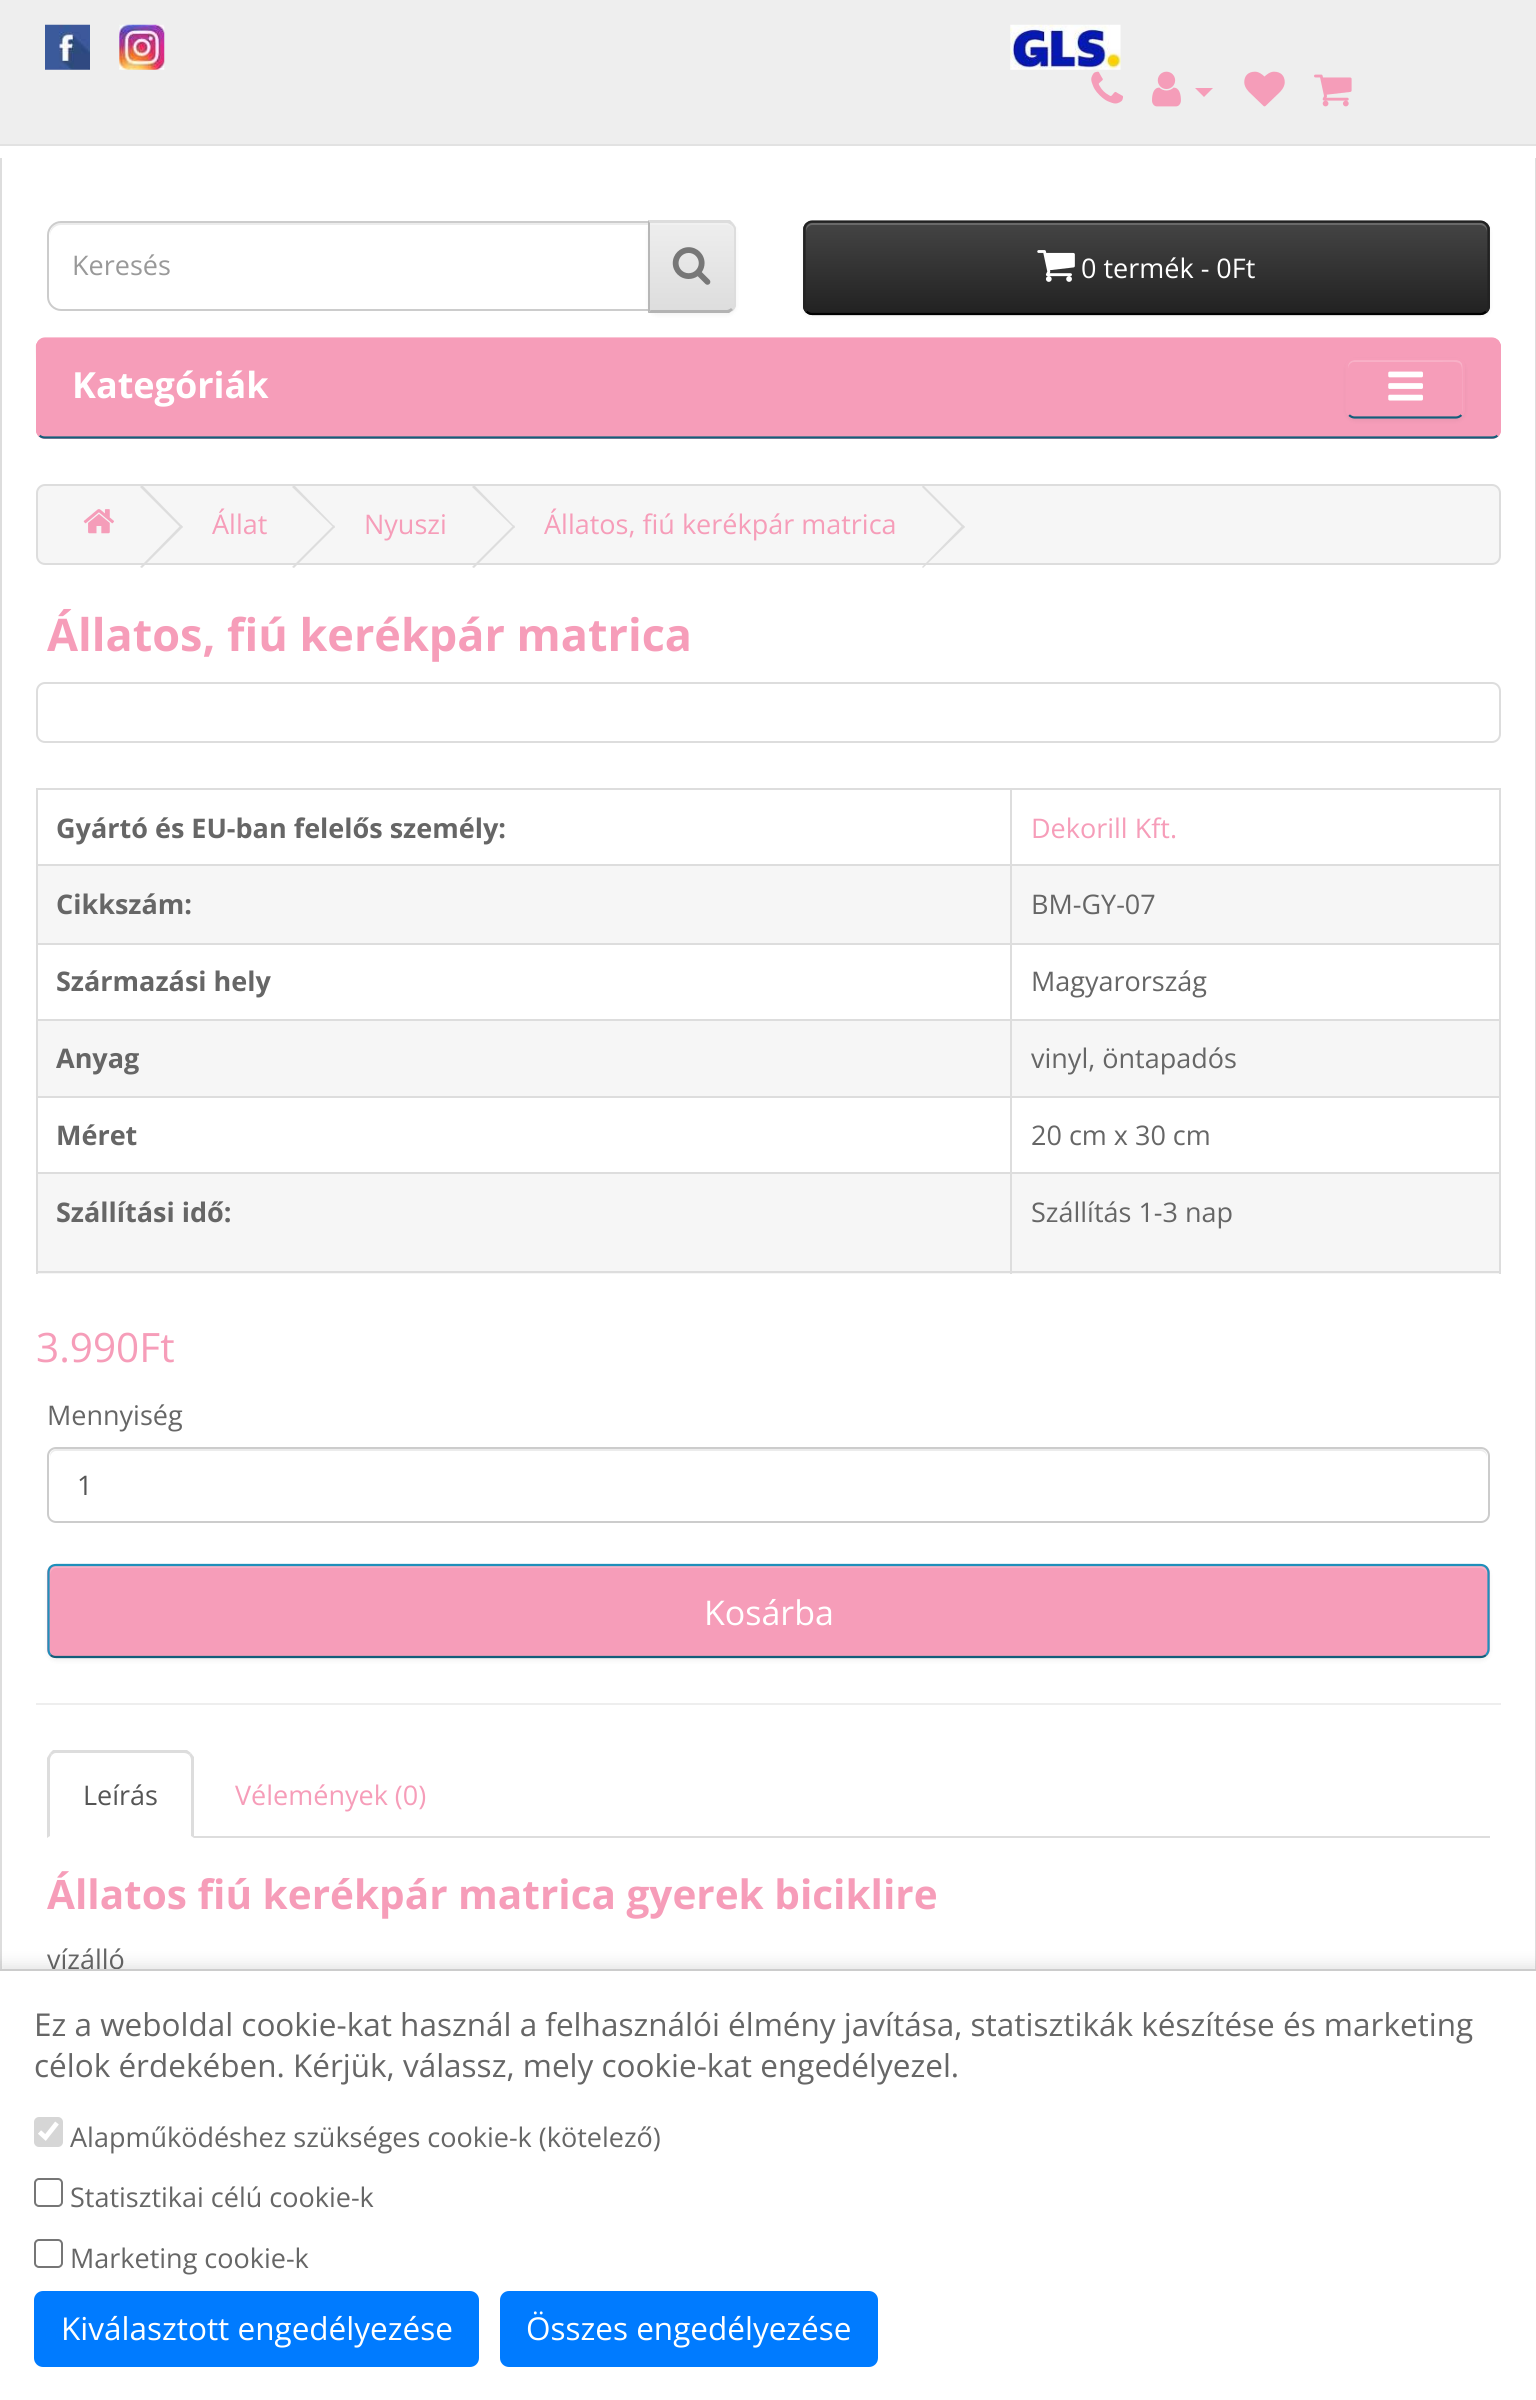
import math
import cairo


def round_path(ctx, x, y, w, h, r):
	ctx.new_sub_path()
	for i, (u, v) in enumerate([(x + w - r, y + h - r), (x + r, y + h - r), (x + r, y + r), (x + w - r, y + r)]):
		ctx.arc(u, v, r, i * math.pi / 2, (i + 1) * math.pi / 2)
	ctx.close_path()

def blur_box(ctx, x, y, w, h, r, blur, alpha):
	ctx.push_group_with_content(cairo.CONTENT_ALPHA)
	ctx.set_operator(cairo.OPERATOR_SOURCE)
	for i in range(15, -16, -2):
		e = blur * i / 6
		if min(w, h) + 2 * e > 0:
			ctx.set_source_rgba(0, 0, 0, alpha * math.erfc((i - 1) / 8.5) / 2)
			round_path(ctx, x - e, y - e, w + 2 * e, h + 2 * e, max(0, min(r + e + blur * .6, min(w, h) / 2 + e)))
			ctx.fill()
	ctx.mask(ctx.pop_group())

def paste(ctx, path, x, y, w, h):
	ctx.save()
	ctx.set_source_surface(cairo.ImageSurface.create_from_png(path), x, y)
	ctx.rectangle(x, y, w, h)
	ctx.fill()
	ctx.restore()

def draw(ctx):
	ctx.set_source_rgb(1, 1, 1)
	ctx.paint()
	ctx.set_source_rgb(0.933, 0.933, 0.933)
	ctx.rectangle(0, 0, 1536, 144)
	ctx.fill()
	ctx.set_source_rgb(0.886, 0.886, 0.886)
	ctx.rectangle(0, 144, 1536, 2)
	ctx.fill()
	paste(ctx, 'media/1.png', 45, 24, 45, 46)
	paste(ctx, 'media/2.png', 119, 24, 46, 46)
	paste(ctx, 'media/3.png', 1010, 24, 111, 46)
	paste(ctx, 'media/4.png', 1091, 71, 32, 33)
	paste(ctx, 'media/5.png', 1152, 71, 29, 36)
	ctx.set_source_rgb(0.961, 0.616, 0.725)
	ctx.new_path()
	ctx.move_to(1195, 88)
	ctx.line_to(1213, 88)
	ctx.line_to(1204, 97)
	ctx.close_path()
	ctx.fill()
	paste(ctx, 'media/6.png', 1244, 71, 41, 36)
	paste(ctx, 'media/7.png', 1314, 74, 38, 33)
	ctx.set_source_rgb(0.867, 0.867, 0.867)
	ctx.rectangle(1535, 158, 1, 1811)
	ctx.fill()
	ctx.rectangle(0, 158, 2, 1811)
	ctx.fill()
	ctx.set_source_rgb(0.925, 0.925, 0.925)
	ctx.new_path()
	ctx.move_to(61, 225)
	ctx.line_to(648, 225)
	ctx.line_to(648, 223)
	ctx.line_to(61, 223)
	ctx.curve_to(55, 223, 50, 228, 50, 234)
	ctx.line_to(50, 236)
	ctx.curve_to(50, 230, 55, 225, 61, 225)
	ctx.close_path()
	ctx.fill()
	ctx.new_path()
	ctx.move_to(61, 222)
	ctx.line_to(649, 222)
	ctx.line_to(649, 310)
	ctx.line_to(61, 310)
	ctx.curve_to(54, 310, 48, 304, 48, 297)
	ctx.line_to(48, 235)
	ctx.curve_to(48, 228, 54, 222, 61, 222)
	ctx.close_path()
	ctx.set_source_rgb(0.8, 0.8, 0.8)
	ctx.stroke()
	ctx.select_font_face('Open Sans')
	ctx.set_font_size(27)
	ctx.set_source_rgb(0.6, 0.6, 0.6)
	ctx.move_to(72, 275)
	ctx.show_text('Keresés')
	ctx.set_source_rgb(0, 0, 0)
	blur_box(ctx, 648, 223, 88, 92, 9, 2, 0.05)
	ctx.set_source_rgb(0.906, 0.906, 0.906)
	ctx.new_path()
	ctx.move_to(648, 221)
	ctx.line_to(727, 221)
	ctx.curve_to(732, 221, 736, 225, 736, 230)
	ctx.line_to(736, 304)
	ctx.curve_to(736, 309, 732, 313, 727, 313)
	ctx.line_to(648, 313)
	ctx.close_path()
	ctx.fill()
	ctx.save()
	ctx.new_path()
	ctx.move_to(648, 221)
	ctx.line_to(727, 221)
	ctx.curve_to(732, 221, 736, 225, 736, 230)
	ctx.line_to(736, 304)
	ctx.curve_to(736, 309, 732, 313, 727, 313)
	ctx.line_to(648, 313)
	ctx.close_path()
	ctx.clip()
	gradient = cairo.LinearGradient(692, 223, 692, 311)
	gradient.add_color_stop_rgba(0, 0.933, 0.933, 0.933, 1)
	gradient.add_color_stop_rgba(1, 0.867, 0.867, 0.867, 1)
	ctx.set_source(gradient)
	ctx.rectangle(650, 223, 86, 88)
	ctx.fill()
	ctx.restore()
	ctx.set_source_rgb(0.945, 0.945, 0.945)
	ctx.new_path()
	ctx.move_to(650, 225)
	ctx.line_to(727, 225)
	ctx.curve_to(730, 225, 734, 228, 734, 232)
	ctx.line_to(734, 230)
	ctx.curve_to(734, 226, 731, 223, 727, 223)
	ctx.line_to(650, 223)
	ctx.close_path()
	ctx.fill()
	ctx.set_source_rgb(0.867, 0.867, 0.867)
	ctx.new_path()
	ctx.move_to(648, 220)
	ctx.line_to(730, 220)
	ctx.line_to(733, 223)
	ctx.line_to(731, 225)
	ctx.curve_to(730, 224, 728, 223, 727, 223)
	ctx.line_to(650, 223)
	ctx.close_path()
	ctx.fill()
	ctx.new_path()
	ctx.move_to(736, 306)
	ctx.line_to(733, 310)
	ctx.line_to(731, 308)
	ctx.curve_to(733, 307, 734, 306, 734, 304)
	ctx.line_to(734, 230)
	ctx.curve_to(734, 228, 733, 226, 731, 225)
	ctx.line_to(733, 223)
	ctx.line_to(736, 228)
	ctx.close_path()
	ctx.fill()
	ctx.set_source_rgb(0.702, 0.702, 0.702)
	ctx.new_path()
	ctx.move_to(729, 313)
	ctx.line_to(648, 313)
	ctx.line_to(651, 310)
	ctx.line_to(727, 310)
	ctx.curve_to(728, 310, 730, 309, 731, 308)
	ctx.line_to(733, 310)
	ctx.close_path()
	ctx.fill()
	ctx.set_source_rgb(0.718, 0.718, 0.718)
	ctx.new_path()
	ctx.move_to(650, 223)
	ctx.line_to(648, 220)
	ctx.line_to(648, 313)
	ctx.line_to(651, 310)
	ctx.line_to(650, 310)
	ctx.close_path()
	ctx.fill()
	paste(ctx, 'media/8.png', 672, 247, 39, 38)
	ctx.set_source_rgb(0, 0, 0)
	blur_box(ctx, 803, 223, 687, 94, 9, 2, 0.05)
	ctx.set_source_rgb(0.212, 0.212, 0.212)
	round_path(ctx, 803, 221, 687, 94, 9)
	ctx.fill()
	ctx.save()
	round_path(ctx, 803, 221, 687, 94, 9)
	ctx.clip()
	gradient = cairo.LinearGradient(1146, 223, 1146, 313)
	gradient.add_color_stop_rgba(0, 0.267, 0.267, 0.267, 1)
	gradient.add_color_stop_rgba(1, 0.133, 0.133, 0.133, 1)
	ctx.set_source(gradient)
	ctx.rectangle(803, 223, 687, 90)
	ctx.fill()
	ctx.restore()
	ctx.set_source_rgb(0.412, 0.412, 0.412)
	ctx.new_path()
	ctx.move_to(812, 225)
	ctx.line_to(1480, 225)
	ctx.curve_to(1484, 225, 1487, 228, 1487, 232)
	ctx.line_to(1487, 230)
	ctx.curve_to(1487, 226, 1484, 223, 1480, 223)
	ctx.line_to(813, 223)
	ctx.curve_to(809, 223, 806, 226, 806, 230)
	ctx.line_to(806, 232)
	ctx.curve_to(806, 228, 809, 225, 812, 225)
	ctx.close_path()
	ctx.fill()
	ctx.new_path()
	ctx.move_to(1486, 311.5)
	ctx.curve_to(1484.5, 313, 1482.5, 314, 1480.5, 314)
	ctx.line_to(812, 314)
	ctx.curve_to(810, 314, 808, 313, 806.5, 311.5)
	ctx.set_source_rgb(0, 0, 0)
	ctx.set_line_width(2.2)
	ctx.stroke()
	ctx.new_path()
	ctx.move_to(806.5, 311.5)
	ctx.curve_to(805, 310, 804.5, 308, 804.5, 306)
	ctx.line_to(804.5, 229.5)
	ctx.curve_to(804.5, 227.5, 805, 225.5, 806.5, 224)
	ctx.curve_to(808, 222.5, 810, 221.5, 812, 221.5)
	ctx.line_to(1480.5, 221.5)
	ctx.curve_to(1482.5, 221.5, 1484.5, 222.5, 1486, 224)
	ctx.curve_to(1487.5, 225.5, 1488.5, 227.5, 1488.5, 229.5)
	ctx.line_to(1488.5, 306)
	ctx.curve_to(1488.5, 308, 1487.5, 310, 1486, 311.5)
	ctx.set_source_rgb(0.133, 0.133, 0.133)
	ctx.stroke()
	paste(ctx, 'media/9.png', 1037, 250, 38, 32)
	ctx.set_source_rgb(1, 1, 1)
	ctx.move_to(1081, 278)
	ctx.show_text('0 termék - 0Ft')
	ctx.set_source_rgb(0.961, 0.616, 0.725)
	round_path(ctx, 36, 338, 1465, 101, 9)
	ctx.fill()
	ctx.save()
	round_path(ctx, 36, 338, 1465, 101, 9)
	ctx.clip()
	ctx.rectangle(36, 340, 1465, 97)
	ctx.fill()
	ctx.restore()
	ctx.new_path()
	ctx.move_to(1497.5, 435.5)
	ctx.curve_to(1496, 437, 1494, 437.5, 1492, 437.5)
	ctx.line_to(45, 437.5)
	ctx.curve_to(43, 437.5, 41, 437, 39.5, 435.5)
	ctx.set_source_rgb(0.078, 0.369, 0.478)
	ctx.stroke()
	ctx.new_path()
	ctx.move_to(39.5, 435.5)
	ctx.line_to(37.5, 431.5)
	ctx.line_to(37, 345.5)
	ctx.line_to(39, 341.5)
	ctx.curve_to(40.5, 339.5, 42.5, 338.5, 45, 338.5)
	ctx.line_to(1492, 338.5)
	ctx.curve_to(1494, 338.5, 1496.5, 339.5, 1498, 341.5)
	ctx.line_to(1499.5, 345.5)
	ctx.line_to(1499.5, 431.5)
	ctx.line_to(1497.5, 435.5)
	ctx.set_source_rgb(0.961, 0.616, 0.725)
	ctx.stroke()
	ctx.select_font_face('Open Sans', cairo.FONT_SLANT_NORMAL, cairo.FONT_WEIGHT_BOLD)
	ctx.set_font_size(36)
	ctx.set_source_rgb(1, 1, 1)
	ctx.move_to(72, 398)
	ctx.show_text('Kategóriák')
	ctx.set_source_rgb(0, 0, 0)
	blur_box(ctx, 1346, 360, 119, 61, 9, 2, 0.05)
	ctx.set_source_rgb(0.961, 0.616, 0.725)
	round_path(ctx, 1346, 358, 119, 61, 9)
	ctx.fill()
	ctx.set_source_rgb(0.969, 0.694, 0.78)
	ctx.new_path()
	ctx.move_to(1354, 362)
	ctx.line_to(1439, 362)
	ctx.curve_to(1464, 362, 1462, 359, 1462, 383)
	ctx.line_to(1462, 413)
	ctx.curve_to(1463, 412, 1463, 410, 1463, 409)
	ctx.line_to(1463, 367)
	ctx.curve_to(1463, 363, 1460, 360, 1456, 360)
	ctx.line_to(1355, 360)
	ctx.curve_to(1351, 360, 1348, 363, 1348, 367)
	ctx.line_to(1348, 369)
	ctx.curve_to(1348, 365, 1351, 362, 1354, 362)
	ctx.close_path()
	ctx.fill()
	ctx.new_path()
	ctx.move_to(1461.5, 415)
	ctx.curve_to(1460, 416.5, 1458, 417.5, 1456, 417.5)
	ctx.line_to(1354.5, 417.5)
	ctx.curve_to(1352.5, 417.5, 1350.5, 416.5, 1349, 415)
	ctx.set_source_rgb(0.078, 0.369, 0.478)
	ctx.stroke()
	ctx.new_path()
	ctx.move_to(1349, 415)
	ctx.curve_to(1347.5, 413.5, 1346.5, 411.5, 1346.5, 409.5)
	ctx.line_to(1346.5, 367)
	ctx.curve_to(1346.5, 364.5, 1347.5, 362.5, 1349, 361)
	ctx.curve_to(1350.5, 359.5, 1352.5, 359, 1354.5, 359)
	ctx.line_to(1456, 359)
	ctx.curve_to(1458, 359, 1460, 359.5, 1461.5, 361)
	ctx.curve_to(1463, 362.5, 1463.5, 364.5, 1463.5, 367)
	ctx.line_to(1463.5, 409.5)
	ctx.curve_to(1463.5, 411.5, 1463, 413.5, 1461.5, 415)
	ctx.set_source_rgb(0.961, 0.616, 0.725)
	ctx.stroke()
	paste(ctx, 'media/10.png', 1388, 371, 35, 30)
	ctx.set_source_rgb(0.961, 0.961, 0.961)
	round_path(ctx, 37, 485, 1463, 79, 8)
	ctx.fill_preserve()
	ctx.set_source_rgb(0.867, 0.867, 0.867)
	ctx.set_line_width(2)
	ctx.stroke()
	paste(ctx, 'media/11.png', 83, 509, 31, 25)
	ctx.new_path()
	ctx.move_to(140, 487)
	ctx.line_to(142, 485)
	ctx.line_to(183, 527)
	ctx.line_to(181, 528)
	ctx.close_path()
	ctx.fill()
	ctx.new_path()
	ctx.move_to(140, 567)
	ctx.line_to(181, 525)
	ctx.line_to(183, 527)
	ctx.line_to(142, 568)
	ctx.close_path()
	ctx.fill()
	ctx.select_font_face('Open Sans')
	ctx.set_font_size(27)
	ctx.set_source_rgb(0.961, 0.616, 0.725)
	ctx.move_to(212, 534)
	ctx.show_text('Állat')
	ctx.set_source_rgb(0.867, 0.867, 0.867)
	ctx.new_path()
	ctx.move_to(292, 487)
	ctx.line_to(294, 485)
	ctx.line_to(335, 527)
	ctx.line_to(334, 528)
	ctx.close_path()
	ctx.fill()
	ctx.new_path()
	ctx.move_to(292, 567)
	ctx.line_to(334, 525)
	ctx.line_to(335, 527)
	ctx.line_to(294, 568)
	ctx.close_path()
	ctx.fill()
	ctx.set_source_rgb(0.961, 0.616, 0.725)
	ctx.move_to(364, 534)
	ctx.show_text('Nyuszi')
	ctx.set_source_rgb(0.867, 0.867, 0.867)
	ctx.new_path()
	ctx.move_to(472, 487)
	ctx.line_to(474, 485)
	ctx.line_to(515, 527)
	ctx.line_to(514, 528)
	ctx.close_path()
	ctx.fill()
	ctx.new_path()
	ctx.move_to(472, 567)
	ctx.line_to(514, 525)
	ctx.line_to(515, 527)
	ctx.line_to(474, 568)
	ctx.close_path()
	ctx.fill()
	ctx.set_source_rgb(0.961, 0.616, 0.725)
	ctx.move_to(544, 534)
	ctx.show_text('Állatos, fiú kerékpár matrica')
	ctx.set_source_rgb(0.867, 0.867, 0.867)
	ctx.new_path()
	ctx.move_to(922, 487)
	ctx.line_to(923, 485)
	ctx.line_to(965, 527)
	ctx.line_to(963, 528)
	ctx.close_path()
	ctx.fill()
	ctx.new_path()
	ctx.move_to(922, 567)
	ctx.line_to(963, 525)
	ctx.line_to(965, 527)
	ctx.line_to(923, 568)
	ctx.close_path()
	ctx.fill()
	ctx.select_font_face('Open Sans', cairo.FONT_SLANT_NORMAL, cairo.FONT_WEIGHT_BOLD)
	ctx.set_font_size(45)
	ctx.set_source_rgb(0.961, 0.616, 0.725)
	ctx.move_to(47, 651)
	ctx.show_text('Állatos, fiú kerékpár matrica')
	round_path(ctx, 37, 683, 1463, 59, 8)
	ctx.set_source_rgb(0.867, 0.867, 0.867)
	ctx.stroke()
	ctx.rectangle(36, 788, 1465, 2)
	ctx.rectangle(1499, 788, 2, 486)
	ctx.fill()
	ctx.set_source_rgb(0.961, 0.961, 0.961)
	ctx.rectangle(38, 1174, 1461, 100)
	ctx.fill()
	ctx.set_source_rgb(0.867, 0.867, 0.867)
	ctx.rectangle(36, 1271, 1465, 2)
	ctx.rectangle(36, 788, 2, 486)
	ctx.fill()
	ctx.set_font_size(27)
	ctx.set_source_rgb(0.4, 0.4, 0.4)
	ctx.move_to(56, 838)
	ctx.show_text('Gyártó és EU-ban felelős személy:')
	ctx.set_source_rgb(0.867, 0.867, 0.867)
	ctx.rectangle(1010, 864, 491, 2)
	ctx.fill()
	ctx.set_source_rgb(0.961, 0.961, 0.961)
	ctx.rectangle(38, 866, 1461, 77)
	ctx.fill()
	ctx.set_source_rgb(0.867, 0.867, 0.867)
	ctx.rectangle(1010, 943, 491, 2)
	ctx.fill()
	ctx.set_source_rgb(0.961, 0.961, 0.961)
	ctx.rectangle(38, 1021, 1461, 75)
	ctx.fill()
	ctx.set_source_rgb(0.867, 0.867, 0.867)
	ctx.rectangle(1010, 1019, 491, 2)
	ctx.rectangle(1010, 1096, 491, 2)
	ctx.rectangle(1010, 1172, 491, 2)
	ctx.rectangle(1010, 1172, 2, 102)
	ctx.rectangle(36, 1172, 977, 2)
	ctx.rectangle(1010, 1096, 2, 79)
	ctx.rectangle(36, 1096, 977, 2)
	ctx.rectangle(1010, 1019, 2, 79)
	ctx.rectangle(36, 1019, 977, 2)
	ctx.rectangle(1010, 943, 2, 79)
	ctx.rectangle(36, 943, 977, 2)
	ctx.rectangle(1010, 864, 2, 81)
	ctx.rectangle(36, 864, 977, 2)
	ctx.rectangle(1010, 788, 2, 78)
	ctx.fill()
	ctx.select_font_face('Open Sans')
	ctx.set_source_rgb(0.961, 0.616, 0.725)
	ctx.move_to(1031, 838)
	ctx.show_text('Dekorill Kft.')
	ctx.select_font_face('Open Sans', cairo.FONT_SLANT_NORMAL, cairo.FONT_WEIGHT_BOLD)
	ctx.set_source_rgb(0.4, 0.4, 0.4)
	ctx.move_to(56, 914)
	ctx.show_text('Cikkszám:')
	ctx.select_font_face('Open Sans')
	ctx.move_to(1031, 914)
	ctx.show_text('BM-GY-07')
	ctx.select_font_face('Open Sans', cairo.FONT_SLANT_NORMAL, cairo.FONT_WEIGHT_BOLD)
	ctx.move_to(56, 991)
	ctx.show_text('Származási hely')
	ctx.select_font_face('Open Sans')
	ctx.move_to(1031, 991)
	ctx.show_text('Magyarország')
	ctx.select_font_face('Open Sans', cairo.FONT_SLANT_NORMAL, cairo.FONT_WEIGHT_BOLD)
	ctx.move_to(56, 1068)
	ctx.show_text('Anyag')
	ctx.select_font_face('Open Sans')
	ctx.move_to(1031, 1068)
	ctx.show_text('vinyl, öntapadós')
	ctx.select_font_face('Open Sans', cairo.FONT_SLANT_NORMAL, cairo.FONT_WEIGHT_BOLD)
	ctx.move_to(56, 1145)
	ctx.show_text('Méret')
	ctx.select_font_face('Open Sans')
	ctx.move_to(1031, 1145)
	ctx.show_text('20 cm x 30 cm')
	ctx.select_font_face('Open Sans', cairo.FONT_SLANT_NORMAL, cairo.FONT_WEIGHT_BOLD)
	ctx.move_to(56, 1222)
	ctx.show_text('Szállítási idő:')
	ctx.select_font_face('Open Sans')
	ctx.move_to(1031, 1222)
	ctx.show_text('Szállítás 1-3 nap')
	ctx.set_font_size(40.5)
	ctx.set_source_rgb(0.961, 0.616, 0.725)
	ctx.move_to(36, 1362)
	ctx.show_text('3.990Ft')
	ctx.set_font_size(27)
	ctx.set_source_rgb(0.4, 0.4, 0.4)
	ctx.move_to(47, 1425)
	ctx.show_text('Mennyiség')
	ctx.set_source_rgb(0.925, 0.925, 0.925)
	ctx.new_path()
	ctx.move_to(56, 1451)
	ctx.line_to(1480, 1451)
	ctx.curve_to(1484, 1451, 1487, 1454, 1487, 1458)
	ctx.line_to(1487, 1456)
	ctx.curve_to(1487, 1452, 1484, 1449, 1480, 1449)
	ctx.line_to(57, 1449)
	ctx.curve_to(53, 1449, 50, 1452, 50, 1456)
	ctx.line_to(50, 1458)
	ctx.curve_to(50, 1454, 53, 1451, 56, 1451)
	ctx.close_path()
	ctx.fill()
	round_path(ctx, 48, 1448, 1441, 74, 8)
	ctx.set_source_rgb(0.8, 0.8, 0.8)
	ctx.stroke()
	ctx.set_source_rgb(0.333, 0.333, 0.333)
	ctx.move_to(77, 1495)
	ctx.show_text('1')
	ctx.set_source_rgb(0, 0, 0)
	blur_box(ctx, 47, 1566, 1443, 95, 9, 2, 0.05)
	ctx.save()
	round_path(ctx, 47, 1564, 1443, 94, 9)
	ctx.clip()
	ctx.set_source_rgb(0.961, 0.616, 0.725)
	ctx.rectangle(47, 1566, 1443, 90)
	ctx.fill()
	ctx.restore()
	ctx.set_source_rgb(0.969, 0.694, 0.78)
	ctx.new_path()
	ctx.move_to(56, 1568)
	ctx.line_to(1480, 1568)
	ctx.curve_to(1484, 1568, 1487, 1571, 1487, 1575)
	ctx.line_to(1487, 1573)
	ctx.curve_to(1487, 1569, 1484, 1566, 1480, 1566)
	ctx.line_to(57, 1566)
	ctx.curve_to(53, 1566, 50, 1569, 50, 1573)
	ctx.line_to(50, 1575)
	ctx.curve_to(50, 1571, 53, 1568, 56, 1568)
	ctx.close_path()
	ctx.fill()
	ctx.new_path()
	ctx.move_to(1486, 1655)
	ctx.curve_to(1484.5, 1656.5, 1482.5, 1657, 1480.5, 1657)
	ctx.line_to(56, 1657)
	ctx.curve_to(54, 1657, 52, 1656.5, 50.5, 1655)
	ctx.set_source_rgb(0.078, 0.369, 0.478)
	ctx.set_line_width(2.2)
	ctx.stroke()
	ctx.new_path()
	ctx.move_to(50.5, 1655)
	ctx.curve_to(49, 1653.5, 48.5, 1651.5, 48.5, 1649)
	ctx.line_to(48.5, 1573)
	ctx.curve_to(48.5, 1570.5, 49, 1568.5, 50.5, 1567)
	ctx.curve_to(52, 1565.5, 54, 1565, 56, 1565)
	ctx.line_to(1480.5, 1565)
	ctx.curve_to(1482.5, 1565, 1484.5, 1565.5, 1486, 1567)
	ctx.curve_to(1487.5, 1568.5, 1488.5, 1570.5, 1488.5, 1573)
	ctx.line_to(1488.5, 1649)
	ctx.curve_to(1488.5, 1651.5, 1487.5, 1653.5, 1486, 1655)
	ctx.set_source_rgb(0.122, 0.565, 0.733)
	ctx.stroke()
	ctx.set_font_size(34)
	ctx.set_source_rgb(1, 1, 1)
	ctx.move_to(704, 1625)
	ctx.show_text('Kosárba')
	ctx.set_source_rgb(0.933, 0.933, 0.933)
	ctx.rectangle(36, 1703, 1465, 2)
	ctx.fill()
	ctx.set_source_rgb(0.867, 0.867, 0.867)
	ctx.rectangle(194, 1836, 1296, 2)
	ctx.fill()
	ctx.new_path()
	ctx.move_to(56, 1753)
	ctx.curve_to(54, 1753, 53, 1754, 52, 1755)
	ctx.line_to(50, 1753)
	ctx.line_to(53, 1750)
	ctx.line_to(187, 1750)
	ctx.line_to(191, 1753)
	ctx.line_to(189, 1755)
	ctx.curve_to(188, 1754, 186, 1753, 184, 1753)
	ctx.close_path()
	ctx.fill()
	ctx.new_path()
	ctx.move_to(194, 1838)
	ctx.line_to(191, 1836)
	ctx.line_to(191, 1760)
	ctx.curve_to(191, 1758, 190, 1756, 189, 1755)
	ctx.line_to(191, 1753)
	ctx.line_to(194, 1757)
	ctx.close_path()
	ctx.fill()
	ctx.new_path()
	ctx.move_to(47, 1758)
	ctx.line_to(50, 1753)
	ctx.line_to(52, 1755)
	ctx.curve_to(51, 1756, 50, 1758, 50, 1760)
	ctx.line_to(50, 1836)
	ctx.line_to(47, 1838)
	ctx.close_path()
	ctx.fill()
	ctx.set_font_size(27)
	ctx.set_source_rgb(0.333, 0.333, 0.333)
	ctx.move_to(83, 1805)
	ctx.show_text('Leírás')
	ctx.set_source_rgb(0.961, 0.616, 0.725)
	ctx.move_to(235, 1805)
	ctx.show_text('Vélemények (0)')
	ctx.select_font_face('Open Sans', cairo.FONT_SLANT_NORMAL, cairo.FONT_WEIGHT_BOLD)
	ctx.set_font_size(40.5)
	ctx.move_to(47, 1909)
	ctx.show_text('Állatos fiú kerékpár matrica gyerek biciklire')
	ctx.select_font_face('Open Sans')
	ctx.set_font_size(27)
	ctx.set_source_rgb(0.4, 0.4, 0.4)
	ctx.move_to(47, 1969)
	ctx.show_text('vízálló')
	ctx.set_source_rgb(0, 0, 0)
	blur_box(ctx, 0, 1964, 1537, 432, 0, 7, 0.1)
	ctx.set_source_rgb(1, 1, 1)
	ctx.rectangle(0, 1971, 1536, 429)
	ctx.fill()
	ctx.set_source_rgb(0.8, 0.8, 0.8)
	ctx.rectangle(0, 1969, 1536, 2)
	ctx.fill()
	ctx.set_font_size(31.5)
	ctx.set_source_rgb(0.4, 0.4, 0.4)
	ctx.move_to(34, 2036)
	ctx.show_text('Ez a weboldal cookie-kat használ a felhasználói élmény javítása, statisztikák készítése és marketing')
	ctx.move_to(34, 2077)
	ctx.show_text('célok érdekében. Kérjük, válassz, mely cookie-kat engedélyezel.')
	ctx.set_source_rgb(0.839, 0.839, 0.839)
	round_path(ctx, 34, 2117, 29, 30, 5)
	ctx.fill()
	ctx.new_path()
	ctx.move_to(39.5, 2132)
	ctx.line_to(45.5, 2137.5)
	ctx.line_to(57, 2123)
	ctx.set_source_rgb(1, 1, 1)
	ctx.set_line_width(4.7)
	ctx.stroke()
	ctx.set_font_size(27)
	ctx.set_source_rgb(0.4, 0.4, 0.4)
	ctx.move_to(70, 2147)
	ctx.show_text('Alapműködéshez szükséges cookie-k (kötelező)')
	round_path(ctx, 35, 2179, 27, 27, 4)
	ctx.set_source_rgb(0.463, 0.463, 0.463)
	ctx.set_line_width(2)
	ctx.stroke()
	ctx.set_source_rgb(0.4, 0.4, 0.4)
	ctx.move_to(70, 2207)
	ctx.show_text('Statisztikai célú cookie-k')
	round_path(ctx, 35, 2240, 27, 27, 4)
	ctx.set_source_rgb(0.463, 0.463, 0.463)
	ctx.stroke()
	ctx.set_source_rgb(0.4, 0.4, 0.4)
	ctx.move_to(70, 2268)
	ctx.show_text('Marketing cookie-k')
	ctx.set_source_rgb(0, 0.482, 1)
	round_path(ctx, 34, 2291, 445, 76, 9)
	ctx.fill()
	ctx.set_font_size(31.5)
	ctx.set_source_rgb(1, 1, 1)
	ctx.move_to(61, 2340)
	ctx.show_text('Kiválasztott engedélyezése')
	ctx.set_source_rgb(0, 0.482, 1)
	round_path(ctx, 500, 2291, 378, 76, 9)
	ctx.fill()
	ctx.set_source_rgb(1, 1, 1)
	ctx.move_to(526, 2340)
	ctx.show_text('Összes engedélyezése')


surface = cairo.ImageSurface(cairo.FORMAT_RGB24, 1536, 2400)
ctx = cairo.Context(surface)
options = cairo.FontOptions()
options.set_hint_metrics(cairo.HINT_METRICS_OFF)
options.set_hint_style(cairo.HINT_STYLE_NONE)
ctx.set_font_options(options)
ctx.set_miter_limit(4)
draw(ctx)
surface.write_to_png('image.png')
